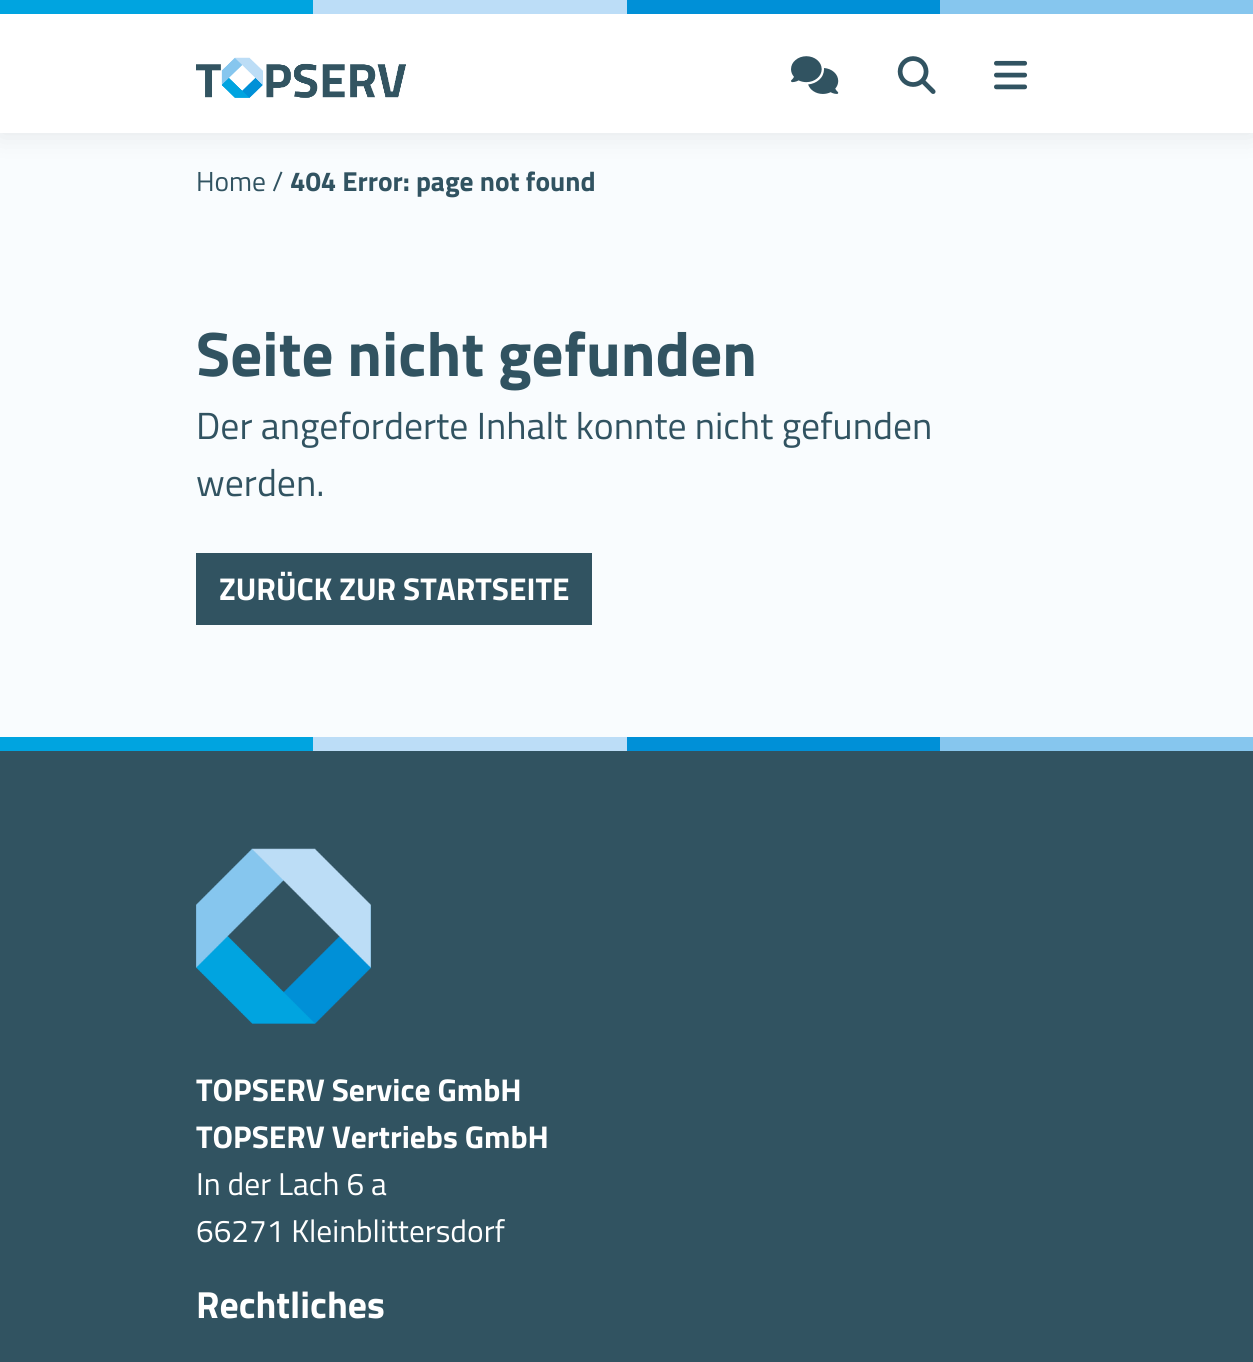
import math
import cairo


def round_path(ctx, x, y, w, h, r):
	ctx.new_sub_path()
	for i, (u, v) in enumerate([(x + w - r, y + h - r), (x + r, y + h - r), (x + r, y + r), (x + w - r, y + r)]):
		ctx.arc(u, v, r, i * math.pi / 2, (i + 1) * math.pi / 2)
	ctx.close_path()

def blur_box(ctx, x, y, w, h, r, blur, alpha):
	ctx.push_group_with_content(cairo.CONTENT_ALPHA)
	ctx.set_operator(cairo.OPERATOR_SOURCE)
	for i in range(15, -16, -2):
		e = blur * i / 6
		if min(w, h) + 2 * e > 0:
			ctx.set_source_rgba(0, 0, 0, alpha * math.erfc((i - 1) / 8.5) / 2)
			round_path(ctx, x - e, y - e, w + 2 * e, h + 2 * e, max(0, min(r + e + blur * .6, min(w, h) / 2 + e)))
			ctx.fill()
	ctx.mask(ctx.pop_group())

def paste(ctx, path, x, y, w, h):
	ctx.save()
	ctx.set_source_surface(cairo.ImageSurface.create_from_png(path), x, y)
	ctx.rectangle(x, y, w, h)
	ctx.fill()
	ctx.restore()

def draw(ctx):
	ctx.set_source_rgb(0.973, 0.988, 0.996)
	ctx.paint()
	ctx.set_source_rgb(0, 0, 0)
	blur_box(ctx, 0, 0, 1253, 133, 0, 14, 0.1)
	ctx.set_source_rgb(1, 1, 1)
	ctx.rectangle(0, 14, 1253, 119)
	ctx.fill()
	ctx.set_source_rgb(0, 0.643, 0.878)
	ctx.rectangle(0, 0, 313, 14)
	ctx.fill()
	ctx.set_source_rgb(0.737, 0.867, 0.965)
	ctx.rectangle(313, 0, 314, 14)
	ctx.fill()
	ctx.set_source_rgb(0, 0.565, 0.843)
	ctx.rectangle(627, 0, 313, 14)
	ctx.fill()
	ctx.set_source_rgb(0.525, 0.776, 0.933)
	ctx.rectangle(940, 0, 313, 14)
	ctx.fill()
	paste(ctx, 'media/1.png', 196, 57, 210, 41)
	paste(ctx, 'media/2.png', 791, 56, 48, 38)
	paste(ctx, 'media/3.png', 897, 56, 39, 38)
	paste(ctx, 'media/4.png', 994, 60, 34, 30)
	ctx.select_font_face('Titillium Web')
	ctx.set_font_size(27.5)
	ctx.set_source_rgb(0.192, 0.325, 0.38)
	ctx.move_to(196, 191)
	ctx.show_text('Home /')
	ctx.select_font_face('Titillium Web', cairo.FONT_SLANT_NORMAL, cairo.FONT_WEIGHT_BOLD)
	ctx.move_to(290, 191)
	ctx.show_text('404 Error: page not found')
	ctx.set_font_size(62.9)
	ctx.move_to(196, 376)
	ctx.show_text('Seite nicht gefunden')
	ctx.select_font_face('Titillium Web')
	ctx.set_font_size(37.75)
	ctx.move_to(196, 439)
	ctx.show_text('Der angeforderte Inhalt konnte nicht gefunden')
	ctx.move_to(196, 496)
	ctx.show_text('werden.')
	ctx.rectangle(196, 553, 396, 72)
	ctx.fill()
	ctx.select_font_face('Titillium Web', cairo.FONT_SLANT_NORMAL, cairo.FONT_WEIGHT_BOLD)
	ctx.set_font_size(31.5)
	ctx.set_source_rgb(1, 1, 1)
	ctx.move_to(219, 600)
	ctx.show_text('ZURÜCK ZUR STARTSEITE')
	ctx.set_source_rgb(0.192, 0.325, 0.38)
	ctx.rectangle(0, 751, 1253, 611)
	ctx.fill()
	ctx.set_source_rgb(0, 0.643, 0.878)
	ctx.rectangle(0, 737, 313, 14)
	ctx.fill()
	ctx.set_source_rgb(0.737, 0.867, 0.965)
	ctx.rectangle(313, 737, 314, 14)
	ctx.fill()
	ctx.set_source_rgb(0, 0.565, 0.843)
	ctx.rectangle(627, 737, 313, 14)
	ctx.fill()
	ctx.set_source_rgb(0.525, 0.776, 0.933)
	ctx.rectangle(940, 737, 313, 14)
	ctx.fill()
	paste(ctx, 'media/5.png', 196, 848, 175, 176)
	ctx.set_source_rgb(1, 1, 1)
	ctx.move_to(196, 1101)
	ctx.show_text('TOPSERV Service GmbH')
	ctx.move_to(196, 1148)
	ctx.show_text('TOPSERV Vertriebs GmbH')
	ctx.select_font_face('Titillium Web')
	ctx.move_to(196, 1195)
	ctx.show_text('In der Lach 6 a')
	ctx.move_to(196, 1242)
	ctx.show_text('66271 Kleinblittersdorf')
	ctx.select_font_face('Titillium Web', cairo.FONT_SLANT_NORMAL, cairo.FONT_WEIGHT_BOLD)
	ctx.set_font_size(37.75)
	ctx.move_to(196, 1318)
	ctx.show_text('Rechtliches')


surface = cairo.ImageSurface(cairo.FORMAT_RGB24, 1253, 1362)
ctx = cairo.Context(surface)
options = cairo.FontOptions()
options.set_hint_metrics(cairo.HINT_METRICS_OFF)
options.set_hint_style(cairo.HINT_STYLE_NONE)
ctx.set_font_options(options)
ctx.set_miter_limit(4)
draw(ctx)
surface.write_to_png('image.png')
